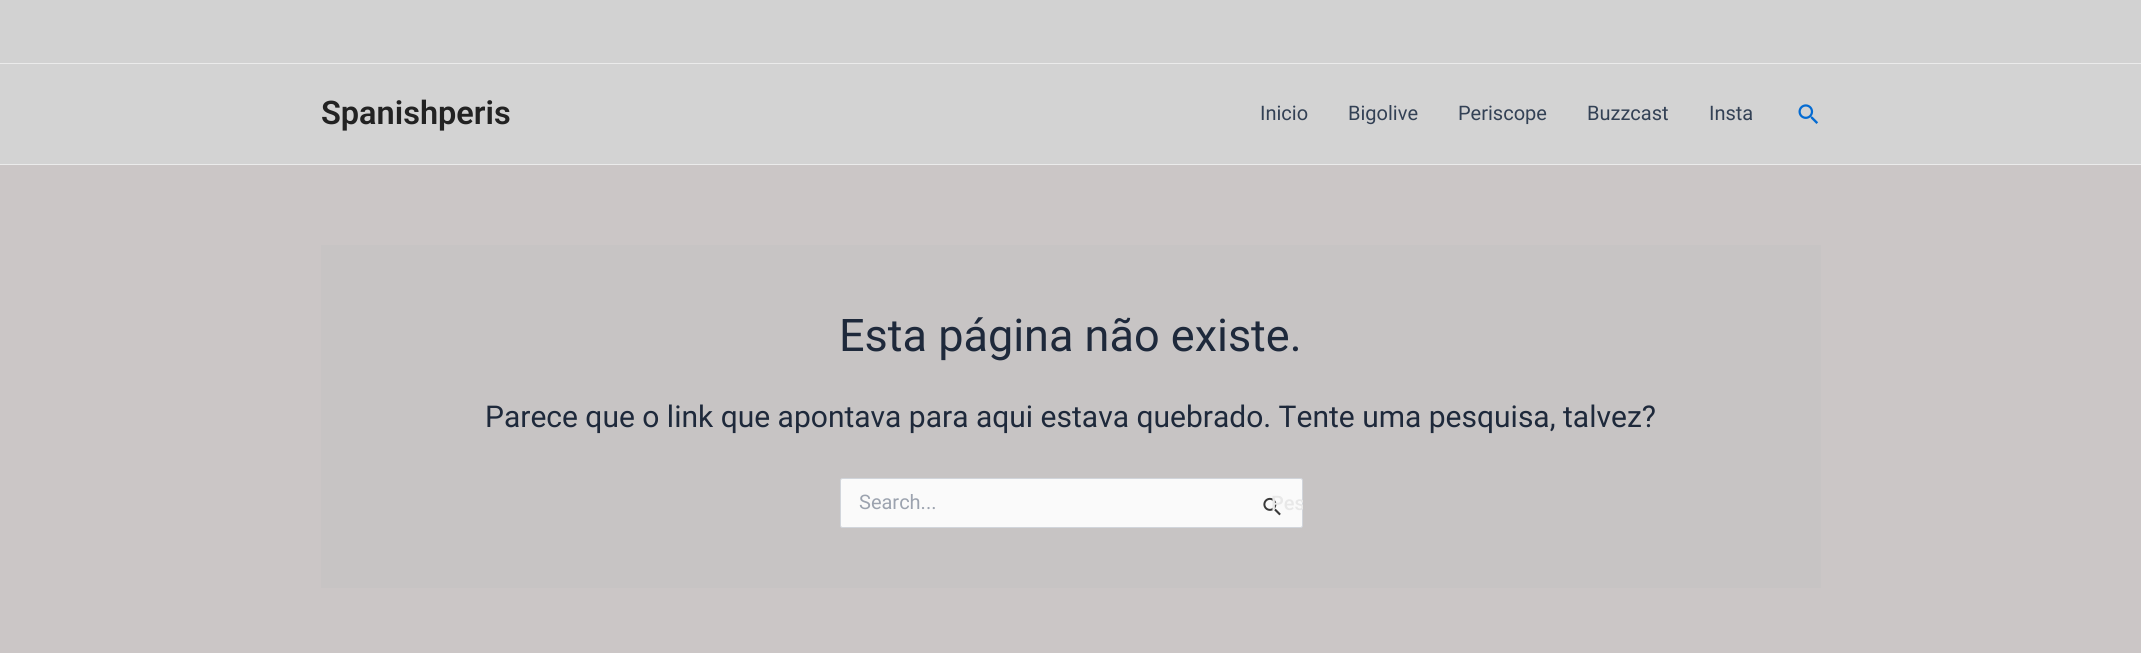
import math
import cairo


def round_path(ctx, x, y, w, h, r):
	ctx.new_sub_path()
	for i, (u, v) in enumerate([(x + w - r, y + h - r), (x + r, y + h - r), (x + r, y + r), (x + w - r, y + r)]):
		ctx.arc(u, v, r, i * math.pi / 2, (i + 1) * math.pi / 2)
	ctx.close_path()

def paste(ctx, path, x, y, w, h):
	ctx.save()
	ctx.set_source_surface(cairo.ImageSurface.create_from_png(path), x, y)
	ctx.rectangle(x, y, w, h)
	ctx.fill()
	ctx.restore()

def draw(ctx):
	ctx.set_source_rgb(0.796, 0.776, 0.776)
	ctx.paint()
	ctx.set_source_rgb(0.824, 0.824, 0.824)
	ctx.rectangle(0, 0, 2141, 63)
	ctx.fill()
	ctx.set_source_rgb(0.918, 0.918, 0.918)
	ctx.rectangle(0, 63, 2141, 1)
	ctx.fill()
	ctx.set_source_rgb(0.827, 0.827, 0.827)
	ctx.rectangle(0, 64, 2141, 100)
	ctx.fill()
	ctx.set_source_rgb(0.918, 0.918, 0.918)
	ctx.rectangle(0, 164, 2141, 1)
	ctx.fill()
	ctx.select_font_face('Roboto SemiBold')
	ctx.set_font_size(32.5)
	ctx.set_source_rgb(0.133, 0.133, 0.133)
	ctx.move_to(321, 124)
	ctx.show_text('Spanishperis')
	ctx.select_font_face('Roboto')
	ctx.set_font_size(20)
	ctx.set_source_rgb(0.2, 0.255, 0.333)
	for x, y, s in [
		(1260, 120, 'Inicio'),
		(1348, 120, 'Bigolive'),
		(1458, 120, 'Periscope'),
		(1587, 120, 'Buzzcast'),
		(1709, 120, 'Insta'),
	]:
		ctx.move_to(x, y)
		ctx.show_text(s)
	paste(ctx, 'media/1.png', 1798, 104, 21, 20)
	ctx.set_source_rgb(0.78, 0.769, 0.769)
	ctx.rectangle(321, 245, 1500, 343)
	ctx.fill()
	ctx.set_font_size(45)
	ctx.set_source_rgb(0.118, 0.161, 0.231)
	ctx.move_to(839, 351)
	ctx.show_text('Esta página não existe.')
	ctx.set_font_size(30)
	ctx.move_to(485, 427)
	ctx.show_text('Parece que o link que apontava para aqui estava quebrado. Tente uma pesquisa, talvez?')
	ctx.set_source_rgb(0.98, 0.98, 0.98)
	round_path(ctx, 840.5, 478.5, 462, 49, 2)
	ctx.fill_preserve()
	ctx.set_source_rgb(0.82, 0.835, 0.859)
	ctx.set_line_width(1)
	ctx.stroke()
	ctx.set_font_size(20)
	ctx.set_source_rgb(0.612, 0.639, 0.686)
	ctx.move_to(859, 509)
	ctx.show_text('Search...')
	paste(ctx, 'media/2.png', 1263, 497, 18, 19)
	ctx.save()
	round_path(ctx, 1246, 478, 57, 52, 2.5)
	ctx.clip()
	ctx.select_font_face('Roboto Medium')
	ctx.set_source_rgb(0.91, 0.91, 0.91)
	ctx.move_to(1271, 510)
	ctx.show_text('Pes')
	ctx.restore()


surface = cairo.ImageSurface(cairo.FORMAT_RGB24, 2141, 653)
ctx = cairo.Context(surface)
options = cairo.FontOptions()
options.set_hint_metrics(cairo.HINT_METRICS_OFF)
options.set_hint_style(cairo.HINT_STYLE_NONE)
ctx.set_font_options(options)
ctx.set_miter_limit(4)
draw(ctx)
surface.write_to_png('image.png')
